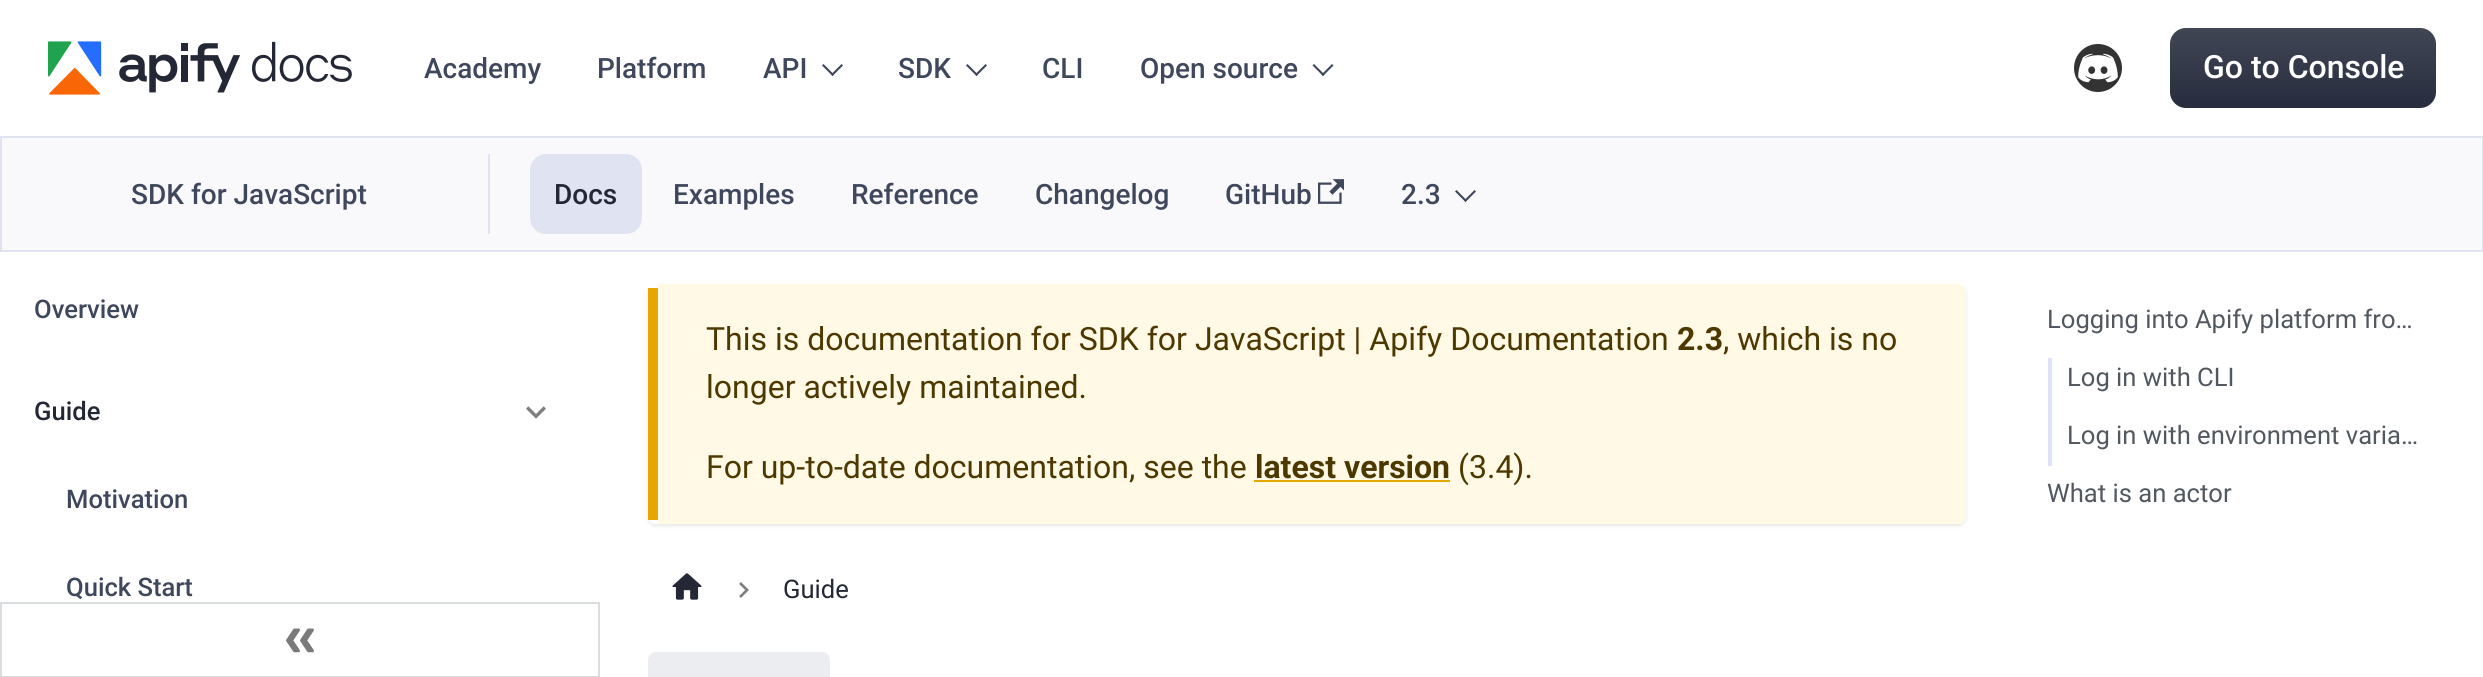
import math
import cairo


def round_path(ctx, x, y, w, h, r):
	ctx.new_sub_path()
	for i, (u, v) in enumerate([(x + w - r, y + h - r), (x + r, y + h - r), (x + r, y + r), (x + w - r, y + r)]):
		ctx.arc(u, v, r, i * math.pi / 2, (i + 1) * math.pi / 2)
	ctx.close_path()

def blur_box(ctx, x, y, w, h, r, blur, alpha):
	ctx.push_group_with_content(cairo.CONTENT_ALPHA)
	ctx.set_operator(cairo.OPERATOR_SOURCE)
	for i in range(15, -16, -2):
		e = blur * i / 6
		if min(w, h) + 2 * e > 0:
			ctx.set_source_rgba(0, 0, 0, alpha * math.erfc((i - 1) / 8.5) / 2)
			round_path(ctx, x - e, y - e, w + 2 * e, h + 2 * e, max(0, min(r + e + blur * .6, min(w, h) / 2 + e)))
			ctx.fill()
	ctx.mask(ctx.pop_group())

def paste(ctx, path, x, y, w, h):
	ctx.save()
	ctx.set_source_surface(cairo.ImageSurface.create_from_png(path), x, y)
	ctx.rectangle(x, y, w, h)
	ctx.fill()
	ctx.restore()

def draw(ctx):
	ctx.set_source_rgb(1, 1, 1)
	ctx.paint()
	paste(ctx, 'media/1.png', 48, 41, 304, 54)
	ctx.select_font_face('Roboto Medium')
	ctx.set_font_size(28)
	ctx.set_source_rgb(0.247, 0.278, 0.365)
	for x, y, s in [
		(424, 78, 'Academy'),
		(597, 78, 'Platform'),
		(763, 78, 'API'),
	]:
		ctx.move_to(x, y)
		ctx.show_text(s)
	ctx.new_path()
	ctx.move_to(843, 65.5)
	ctx.line_to(832.5, 76)
	ctx.line_to(831, 74.5)
	ctx.line_to(841.5, 64)
	ctx.close_path()
	ctx.fill()
	ctx.new_path()
	ctx.move_to(834, 74.5)
	ctx.line_to(832.5, 76)
	ctx.line_to(822, 65.5)
	ctx.line_to(823.5, 64)
	ctx.close_path()
	ctx.fill()
	ctx.move_to(898, 78)
	ctx.show_text('SDK')
	ctx.new_path()
	ctx.move_to(987, 65.5)
	ctx.line_to(976.5, 76)
	ctx.line_to(975, 74.5)
	ctx.line_to(985.5, 64)
	ctx.close_path()
	ctx.fill()
	ctx.new_path()
	ctx.move_to(978, 74.5)
	ctx.line_to(976.5, 76)
	ctx.line_to(966, 65.5)
	ctx.line_to(967.5, 64)
	ctx.close_path()
	ctx.fill()
	ctx.move_to(1042, 78)
	ctx.show_text('CLI')
	ctx.move_to(1140, 78)
	ctx.show_text('Open source')
	ctx.new_path()
	ctx.move_to(1333.5, 65.5)
	ctx.line_to(1323, 76)
	ctx.line_to(1321.5, 74.5)
	ctx.line_to(1332, 64)
	ctx.close_path()
	ctx.fill()
	ctx.new_path()
	ctx.move_to(1324.5, 74.5)
	ctx.line_to(1323, 76)
	ctx.line_to(1312.5, 65.5)
	ctx.line_to(1314, 64)
	ctx.close_path()
	ctx.fill()
	paste(ctx, 'media/2.png', 2074, 44, 48, 48)
	ctx.set_source_rgb(0.153, 0.176, 0.243)
	round_path(ctx, 2170, 28, 266, 80, 16)
	ctx.fill()
	gradient = cairo.LinearGradient(2303, 28, 2303, 108)
	gradient.add_color_stop_rgba(0, 1, 1, 1, 0.12)
	gradient.add_color_stop_rgba(1, 1, 1, 1, 0)
	ctx.set_source(gradient)
	round_path(ctx, 2170, 28, 266, 80, 16)
	ctx.fill()
	ctx.set_font_size(32)
	ctx.set_source_rgb(1, 1, 1)
	ctx.move_to(2203, 78)
	ctx.show_text('Go to Console')
	ctx.set_source_rgb(0.973, 0.976, 0.988)
	ctx.rectangle(1, 137, 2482, 114)
	ctx.fill_preserve()
	ctx.set_source_rgb(0.878, 0.89, 0.949)
	ctx.stroke()
	ctx.rectangle(488, 154, 2, 80)
	ctx.fill()
	ctx.set_font_size(28)
	ctx.set_source_rgb(0.247, 0.278, 0.365)
	ctx.move_to(131, 204)
	ctx.show_text('SDK for JavaScript')
	ctx.set_source_rgb(0.878, 0.89, 0.949)
	round_path(ctx, 530, 154, 112, 80, 16)
	ctx.fill()
	ctx.set_source_rgb(0.141, 0.153, 0.212)
	ctx.move_to(554, 204)
	ctx.show_text('Docs')
	ctx.set_source_rgb(0.247, 0.278, 0.365)
	for x, y, s in [
		(673, 204, 'Examples'),
		(851, 204, 'Reference'),
		(1035, 204, 'Changelog'),
		(1225, 204, 'GitHub'),
	]:
		ctx.move_to(x, y)
		ctx.show_text(s)
	paste(ctx, 'media/3.png', 1318, 179, 26, 25)
	ctx.move_to(1401, 204)
	ctx.show_text('2.3')
	ctx.new_path()
	ctx.move_to(1476, 191.5)
	ctx.line_to(1465.5, 202)
	ctx.line_to(1464, 200.5)
	ctx.line_to(1474.5, 190)
	ctx.close_path()
	ctx.fill()
	ctx.new_path()
	ctx.move_to(1467, 200.5)
	ctx.line_to(1465.5, 202)
	ctx.line_to(1455, 191.5)
	ctx.line_to(1456.5, 190)
	ctx.close_path()
	ctx.fill()
	ctx.set_font_size(25.6)
	ctx.move_to(34, 318)
	ctx.show_text('Overview')
	ctx.set_source_rgb(0.141, 0.153, 0.212)
	ctx.move_to(34, 420)
	ctx.show_text('Guide')
	paste(ctx, 'media/4.png', 526, 406, 20, 13)
	ctx.set_source_rgb(0.247, 0.278, 0.365)
	ctx.move_to(66, 508)
	ctx.show_text('Motivation')
	ctx.move_to(66, 596)
	ctx.show_text('Quick Start')
	ctx.rectangle(1, 603, 598, 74)
	ctx.set_source_rgb(0.855, 0.867, 0.882)
	ctx.stroke()
	paste(ctx, 'media/5.png', 286, 628, 28, 25)
	ctx.save()
	ctx.set_fill_rule(cairo.FILL_RULE_EVEN_ODD)
	ctx.new_path()
	ctx.move_to(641, 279)
	ctx.line_to(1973, 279)
	ctx.line_to(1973, 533)
	ctx.line_to(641, 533)
	ctx.close_path()
	ctx.move_to(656, 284)
	ctx.line_to(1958, 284)
	ctx.curve_to(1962.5, 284, 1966, 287.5, 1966, 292)
	ctx.line_to(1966, 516)
	ctx.curve_to(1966, 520.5, 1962.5, 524, 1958, 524)
	ctx.line_to(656, 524)
	ctx.curve_to(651.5, 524, 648, 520.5, 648, 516)
	ctx.line_to(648, 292)
	ctx.curve_to(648, 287.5, 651.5, 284, 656, 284)
	ctx.close_path()
	ctx.clip()
	ctx.set_source_rgb(0, 0, 0)
	blur_box(ctx, 648, 286, 1318, 240, 8, 2, 0.1)
	ctx.restore()
	ctx.set_source_rgb(1, 0.973, 0.902)
	ctx.new_path()
	ctx.move_to(658, 284)
	ctx.line_to(1958, 284)
	ctx.curve_to(1962, 284, 1966, 288, 1966, 292)
	ctx.line_to(1966, 516)
	ctx.curve_to(1966, 520, 1962, 524, 1958, 524)
	ctx.line_to(658, 524)
	ctx.close_path()
	ctx.fill()
	ctx.set_source_rgb(0.902, 0.655, 0)
	ctx.rectangle(648, 288, 10, 232)
	ctx.fill()
	ctx.select_font_face('Roboto')
	ctx.set_font_size(32)
	ctx.set_source_rgb(0.302, 0.22, 0)
	ctx.move_to(706, 350)
	ctx.show_text('This is documentation for SDK for JavaScript | Apify Documentation')
	ctx.select_font_face('Roboto', cairo.FONT_SLANT_NORMAL, cairo.FONT_WEIGHT_BOLD)
	ctx.move_to(1677, 350)
	ctx.show_text('2.3')
	ctx.select_font_face('Roboto')
	for x, y, s in [
		(1723, 350, ', which is no'),
		(706, 398, 'longer actively maintained.'),
		(706, 478, 'For up-to-date documentation, see the'),
	]:
		ctx.move_to(x, y)
		ctx.show_text(s)
	ctx.select_font_face('Roboto', cairo.FONT_SLANT_NORMAL, cairo.FONT_WEIGHT_BOLD)
	ctx.move_to(1255, 478)
	ctx.show_text('latest version')
	ctx.set_source_rgb(0.902, 0.655, 0)
	ctx.rectangle(1254, 480, 196, 2)
	ctx.fill()
	ctx.select_font_face('Roboto')
	ctx.set_source_rgb(0.302, 0.22, 0)
	ctx.move_to(1458, 478)
	ctx.show_text('(3.4).')
	paste(ctx, 'media/6.png', 672, 573, 30, 27)
	paste(ctx, 'media/7.png', 739, 582, 10, 16)
	ctx.set_font_size(25.6)
	ctx.set_source_rgb(0.141, 0.153, 0.212)
	ctx.move_to(783, 598)
	ctx.show_text('Guide')
	ctx.set_source_rgb(0.922, 0.929, 0.941)
	round_path(ctx, 649, 653, 180, 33, 7)
	ctx.fill_preserve()
	ctx.stroke()
	ctx.set_source_rgb(0.322, 0.345, 0.376)
	ctx.move_to(2047, 328)
	ctx.show_text('Logging into Apify platform fro…')
	ctx.set_source_rgb(0.875, 0.886, 0.961)
	ctx.rectangle(2048, 358, 4, 108)
	ctx.fill()
	ctx.set_source_rgb(0.322, 0.345, 0.376)
	for x, y, s in [
		(2067, 386, 'Log in with CLI'),
		(2067, 444, 'Log in with environment varia…'),
		(2047, 502, 'What is an actor'),
	]:
		ctx.move_to(x, y)
		ctx.show_text(s)


surface = cairo.ImageSurface(cairo.FORMAT_RGB24, 2483, 677)
ctx = cairo.Context(surface)
options = cairo.FontOptions()
options.set_hint_metrics(cairo.HINT_METRICS_OFF)
options.set_hint_style(cairo.HINT_STYLE_NONE)
ctx.set_font_options(options)
ctx.set_miter_limit(4)
draw(ctx)
surface.write_to_png('image.png')
